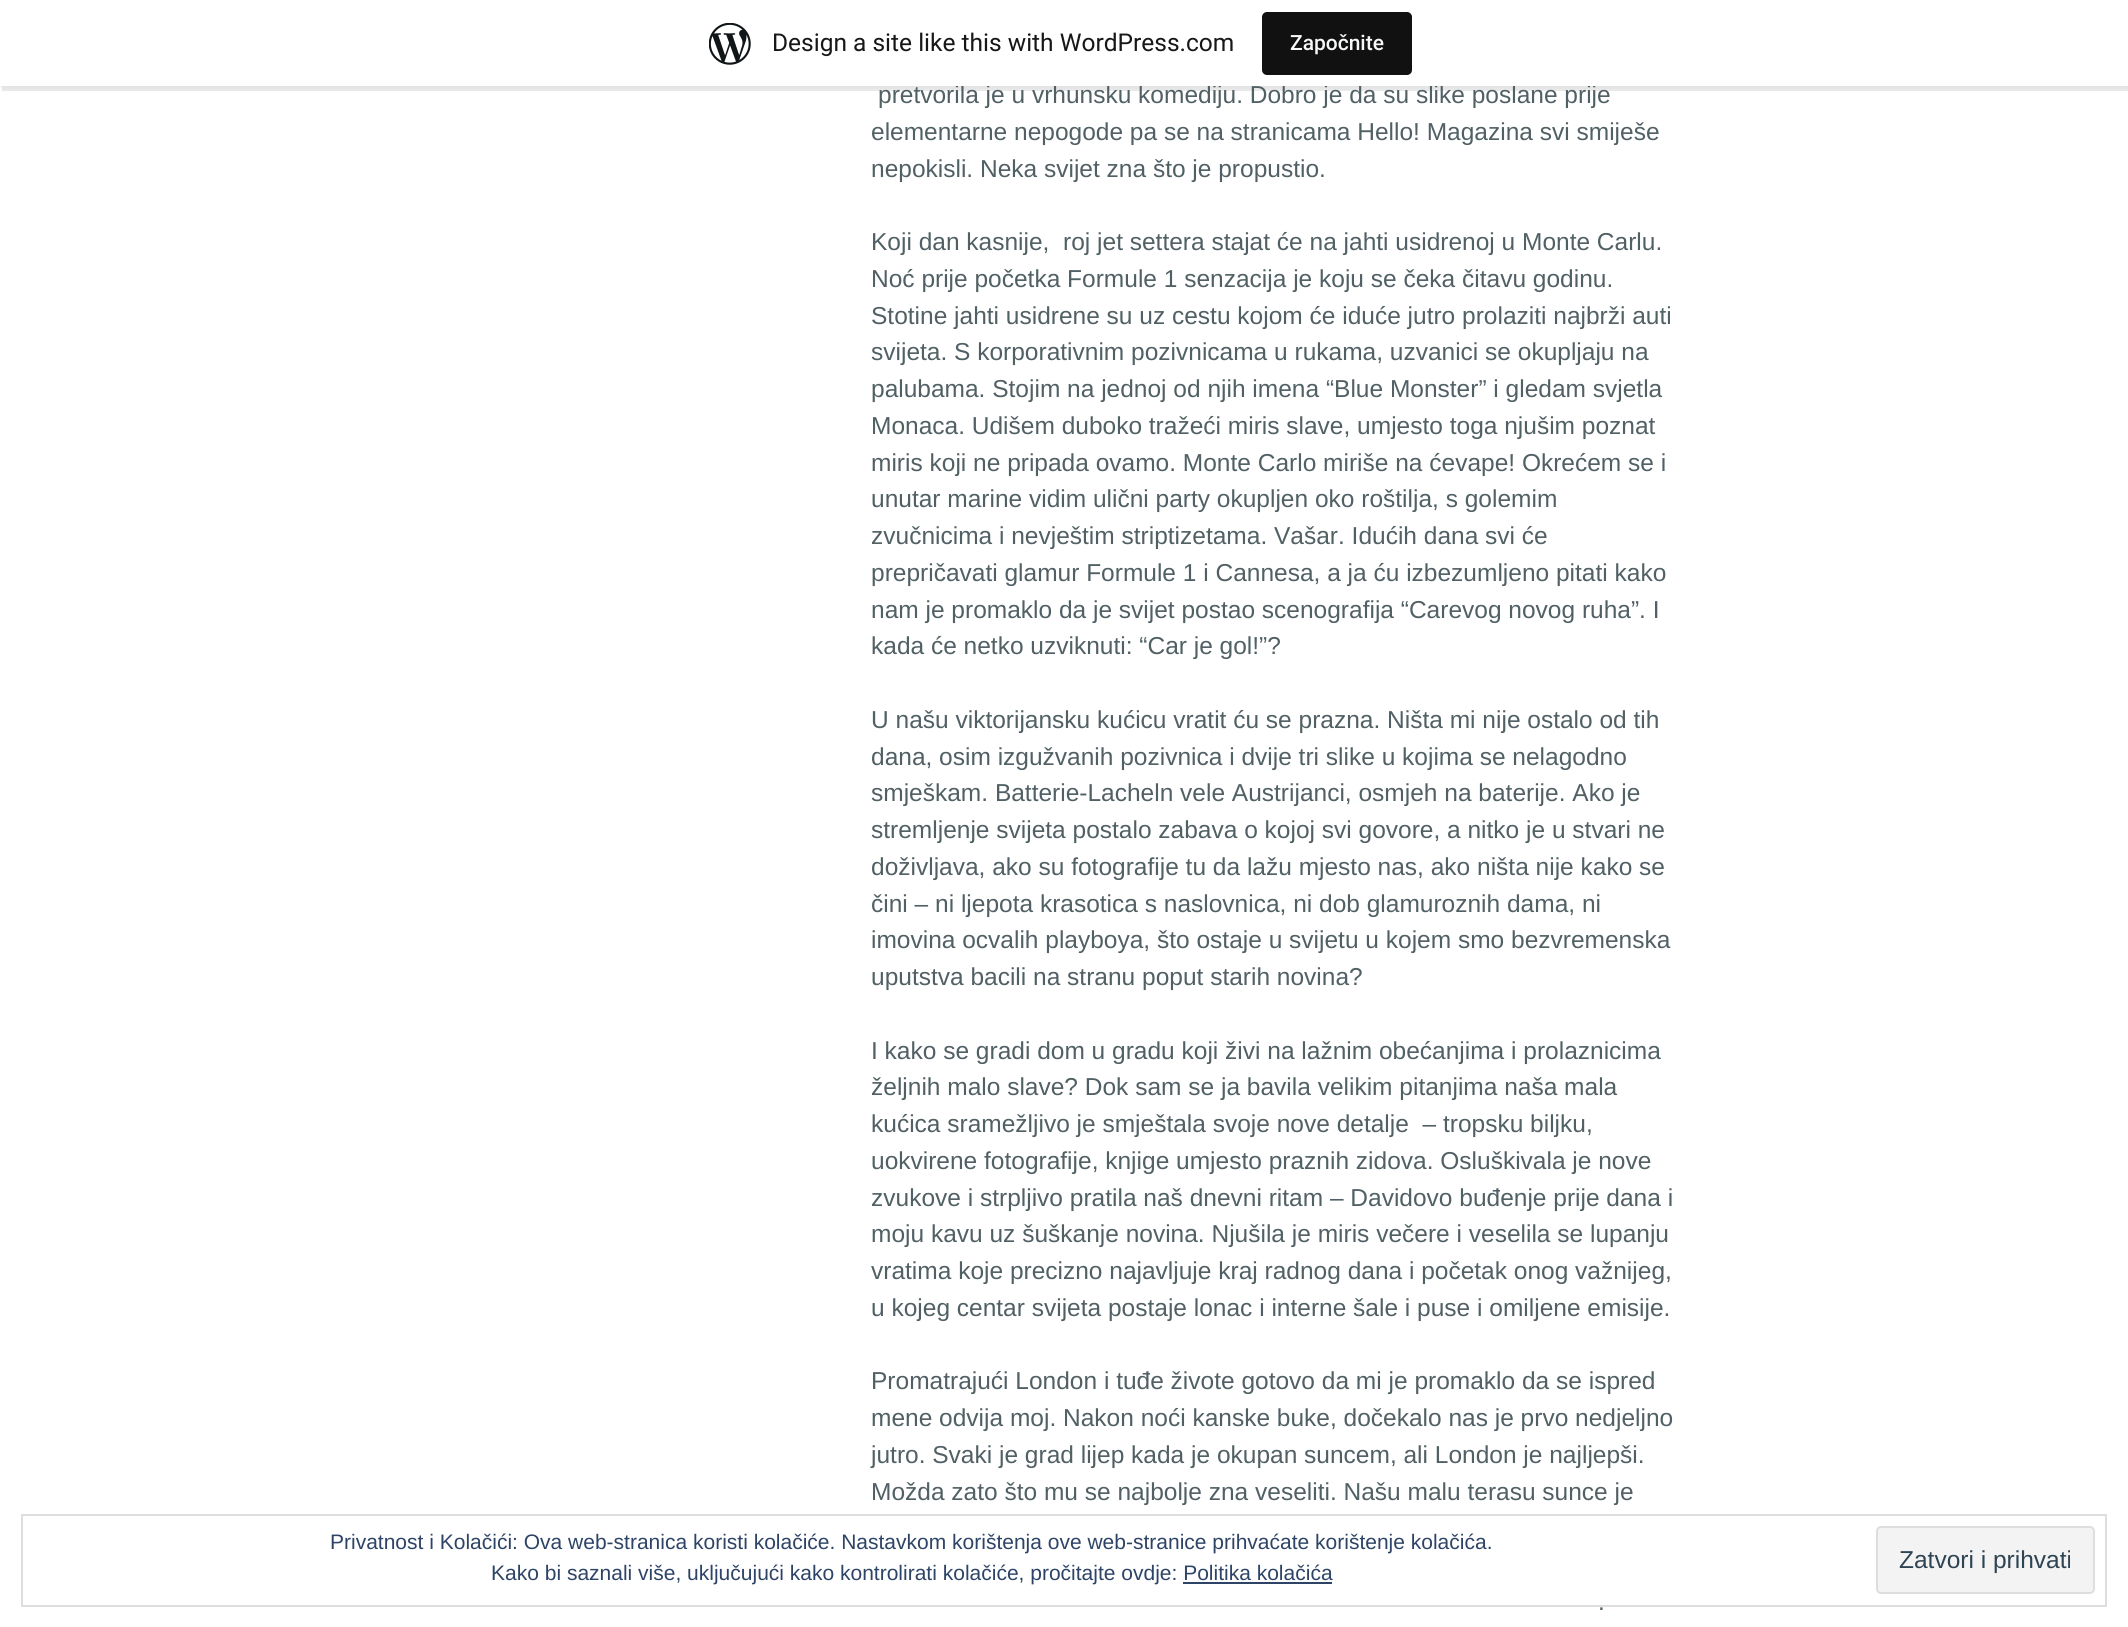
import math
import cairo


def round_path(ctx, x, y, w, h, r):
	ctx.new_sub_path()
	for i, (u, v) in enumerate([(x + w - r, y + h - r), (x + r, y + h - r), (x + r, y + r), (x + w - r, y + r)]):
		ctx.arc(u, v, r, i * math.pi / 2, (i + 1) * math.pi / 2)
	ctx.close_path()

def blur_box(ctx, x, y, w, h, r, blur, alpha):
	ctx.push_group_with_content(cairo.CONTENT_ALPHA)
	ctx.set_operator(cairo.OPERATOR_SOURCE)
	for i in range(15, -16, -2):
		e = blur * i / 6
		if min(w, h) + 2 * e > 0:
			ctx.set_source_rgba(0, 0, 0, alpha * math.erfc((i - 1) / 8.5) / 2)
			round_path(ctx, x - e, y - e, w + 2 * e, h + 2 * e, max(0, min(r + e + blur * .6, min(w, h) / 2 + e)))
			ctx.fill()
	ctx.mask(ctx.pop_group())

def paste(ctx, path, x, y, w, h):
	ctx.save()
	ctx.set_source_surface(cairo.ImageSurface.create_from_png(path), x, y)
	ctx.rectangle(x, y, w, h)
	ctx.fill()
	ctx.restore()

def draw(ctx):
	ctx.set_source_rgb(1, 1, 1)
	ctx.paint()
	ctx.set_source_rgb(0, 0, 0)
	blur_box(ctx, 0, 2, 2128, 86, 0, 2, 0.05)
	ctx.set_source_rgba(0, 0, 0, 0.08)
	ctx.new_path()
	ctx.move_to(2, 86)
	ctx.line_to(2, 91)
	ctx.line_to(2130, 91)
	ctx.line_to(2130, 5)
	ctx.line_to(2128, 5)
	ctx.line_to(2128, 86)
	ctx.close_path()
	ctx.fill()
	ctx.select_font_face('Liberation Sans')
	ctx.set_font_size(24.5)
	ctx.set_source_rgb(0.318, 0.376, 0.392)
	ctx.move_to(878, 103)
	ctx.show_text('pretvorila je u vrhunsku komediju. Dobro je da su slike poslane prije')
	ctx.set_source_rgb(1, 1, 1)
	ctx.rectangle(0, 0, 2128, 86)
	ctx.fill()
	paste(ctx, 'media/1.png', 709, 23, 42, 42)
	ctx.select_font_face('Roboto')
	ctx.set_source_rgb(0.09, 0.09, 0.09)
	ctx.move_to(772, 51)
	ctx.show_text('Design a site like this with WordPress.com')
	ctx.set_source_rgb(0.067, 0.067, 0.067)
	round_path(ctx, 1262, 12, 150, 63, 5)
	ctx.fill()
	ctx.select_font_face('Roboto Medium')
	ctx.set_font_size(21)
	ctx.set_source_rgb(0.965, 0.969, 0.969)
	ctx.move_to(1290, 50)
	ctx.show_text('Započnite')
	ctx.select_font_face('Liberation Sans')
	ctx.set_font_size(24.5)
	ctx.set_source_rgb(0.318, 0.376, 0.392)
	for x, y, s in [
		(871, 140, 'elementarne nepogode pa se na stranicama Hello! Magazina svi smiješe'),
		(871, 177, 'nepokisli. Neka svijet zna što je propustio.'),
		(871, 250, 'Koji dan kasnije,  roj jet settera stajat će na jahti usidrenoj u Monte Carlu.'),
		(871, 287, 'Noć prije početka Formule 1 senzacija je koju se čeka čitavu godinu.'),
		(871, 324, 'Stotine jahti usidrene su uz cestu kojom će iduće jutro prolaziti najbrži auti'),
		(871, 360, 'svijeta. S korporativnim pozivnicama u rukama, uzvanici se okupljaju na'),
		(871, 397, 'palubama. Stojim na jednoj od njih imena “Blue Monster” i gledam svjetla'),
		(871, 434, 'Monaca. Udišem duboko tražeći miris slave, umjesto toga njušim poznat'),
		(871, 471, 'miris koji ne pripada ovamo. Monte Carlo miriše na ćevape! Okrećem se i'),
		(871, 507, 'unutar marine vidim ulični party okupljen oko roštilja, s golemim'),
		(871, 544, 'zvučnicima i nevještim striptizetama. Vašar. Idućih dana svi će'),
		(871, 581, 'prepričavati glamur Formule 1 i Cannesa, a ja ću izbezumljeno pitati kako'),
		(871, 618, 'nam je promaklo da je svijet postao scenografija “Carevog novog ruha”. I'),
		(871, 654, 'kada će netko uzviknuti: “Car je gol!”?'),
		(871, 728, 'U našu viktorijansku kućicu vratit ću se prazna. Ništa mi nije ostalo od tih'),
		(871, 765, 'dana, osim izgužvanih pozivnica i dvije tri slike u kojima se nelagodno'),
		(871, 801, 'smješkam. Batterie-Lacheln vele Austrijanci, osmjeh na baterije. Ako je'),
		(871, 838, 'stremljenje svijeta postalo zabava o kojoj svi govore, a nitko je u stvari ne'),
		(871, 875, 'doživljava, ako su fotografije tu da lažu mjesto nas, ako ništa nije kako se'),
		(871, 912, 'čini – ni ljepota krasotica s naslovnica, ni dob glamuroznih dama, ni'),
		(871, 948, 'imovina ocvalih playboya, što ostaje u svijetu u kojem smo bezvremenska'),
		(871, 985, 'uputstva bacili na stranu poput starih novina?'),
		(871, 1059, 'I kako se gradi dom u gradu koji živi na lažnim obećanjima i prolaznicima'),
		(871, 1095, 'željnih malo slave? Dok sam se ja bavila velikim pitanjima naša mala'),
		(871, 1132, 'kućica sramežljivo je smještala svoje nove detalje  – tropsku biljku,'),
		(871, 1169, 'uokvirene fotografije, knjige umjesto praznih zidova. Osluškivala je nove'),
		(871, 1206, 'zvukove i strpljivo pratila naš dnevni ritam – Davidovo buđenje prije dana i'),
		(871, 1242, 'moju kavu uz šuškanje novina. Njušila je miris večere i veselila se lupanju'),
		(871, 1279, 'vratima koje precizno najavljuje kraj radnog dana i početak onog važnijeg,'),
		(871, 1316, 'u kojeg centar svijeta postaje lonac i interne šale i puse i omiljene emisije.'),
		(871, 1389, 'Promatrajući London i tuđe živote gotovo da mi je promaklo da se ispred'),
		(871, 1426, 'mene odvija moj. Nakon noći kanske buke, dočekalo nas je prvo nedjeljno'),
		(871, 1463, 'jutro. Svaki je grad lijep kada je okupan suncem, ali London je najljepši.'),
		(871, 1500, 'Možda zato što mu se najbolje zna veseliti. Našu malu terasu sunce je'),
		(1598, 1610, '.'),
	]:
		ctx.move_to(x, y)
		ctx.show_text(s)
	ctx.rectangle(22, 1515, 2084, 91)
	ctx.set_source_rgb(0.871, 0.871, 0.871)
	ctx.stroke()
	ctx.set_font_size(21)
	ctx.set_source_rgb(0.18, 0.267, 0.404)
	ctx.move_to(330, 1549)
	ctx.show_text('Privatnost i Kolačići: Ova web-stranica koristi kolačiće. Nastavkom korištenja ove web-stranice prihvaćate korištenje kolačića.')
	ctx.move_to(491, 1580)
	ctx.show_text('Kako bi saznali više, uključujući kako kontrolirati kolačiće, pročitajte ovdje: Politika kolačića')
	ctx.set_source_rgb(0.953, 0.953, 0.953)
	round_path(ctx, 1877, 1527, 217, 66, 4)
	ctx.fill_preserve()
	ctx.set_source_rgb(0.871, 0.871, 0.871)
	ctx.stroke()
	ctx.set_font_size(24.5)
	ctx.set_source_rgb(0.18, 0.267, 0.325)
	ctx.move_to(1899, 1568)
	ctx.show_text('Zatvori i prihvati')
	ctx.set_source_rgb(0.18, 0.267, 0.404)
	ctx.rectangle(1183, 1582, 149, 2)
	ctx.fill()


surface = cairo.ImageSurface(cairo.FORMAT_RGB24, 2128, 1627)
ctx = cairo.Context(surface)
options = cairo.FontOptions()
options.set_hint_metrics(cairo.HINT_METRICS_OFF)
options.set_hint_style(cairo.HINT_STYLE_NONE)
ctx.set_font_options(options)
ctx.set_miter_limit(4)
draw(ctx)
surface.write_to_png('image.png')
